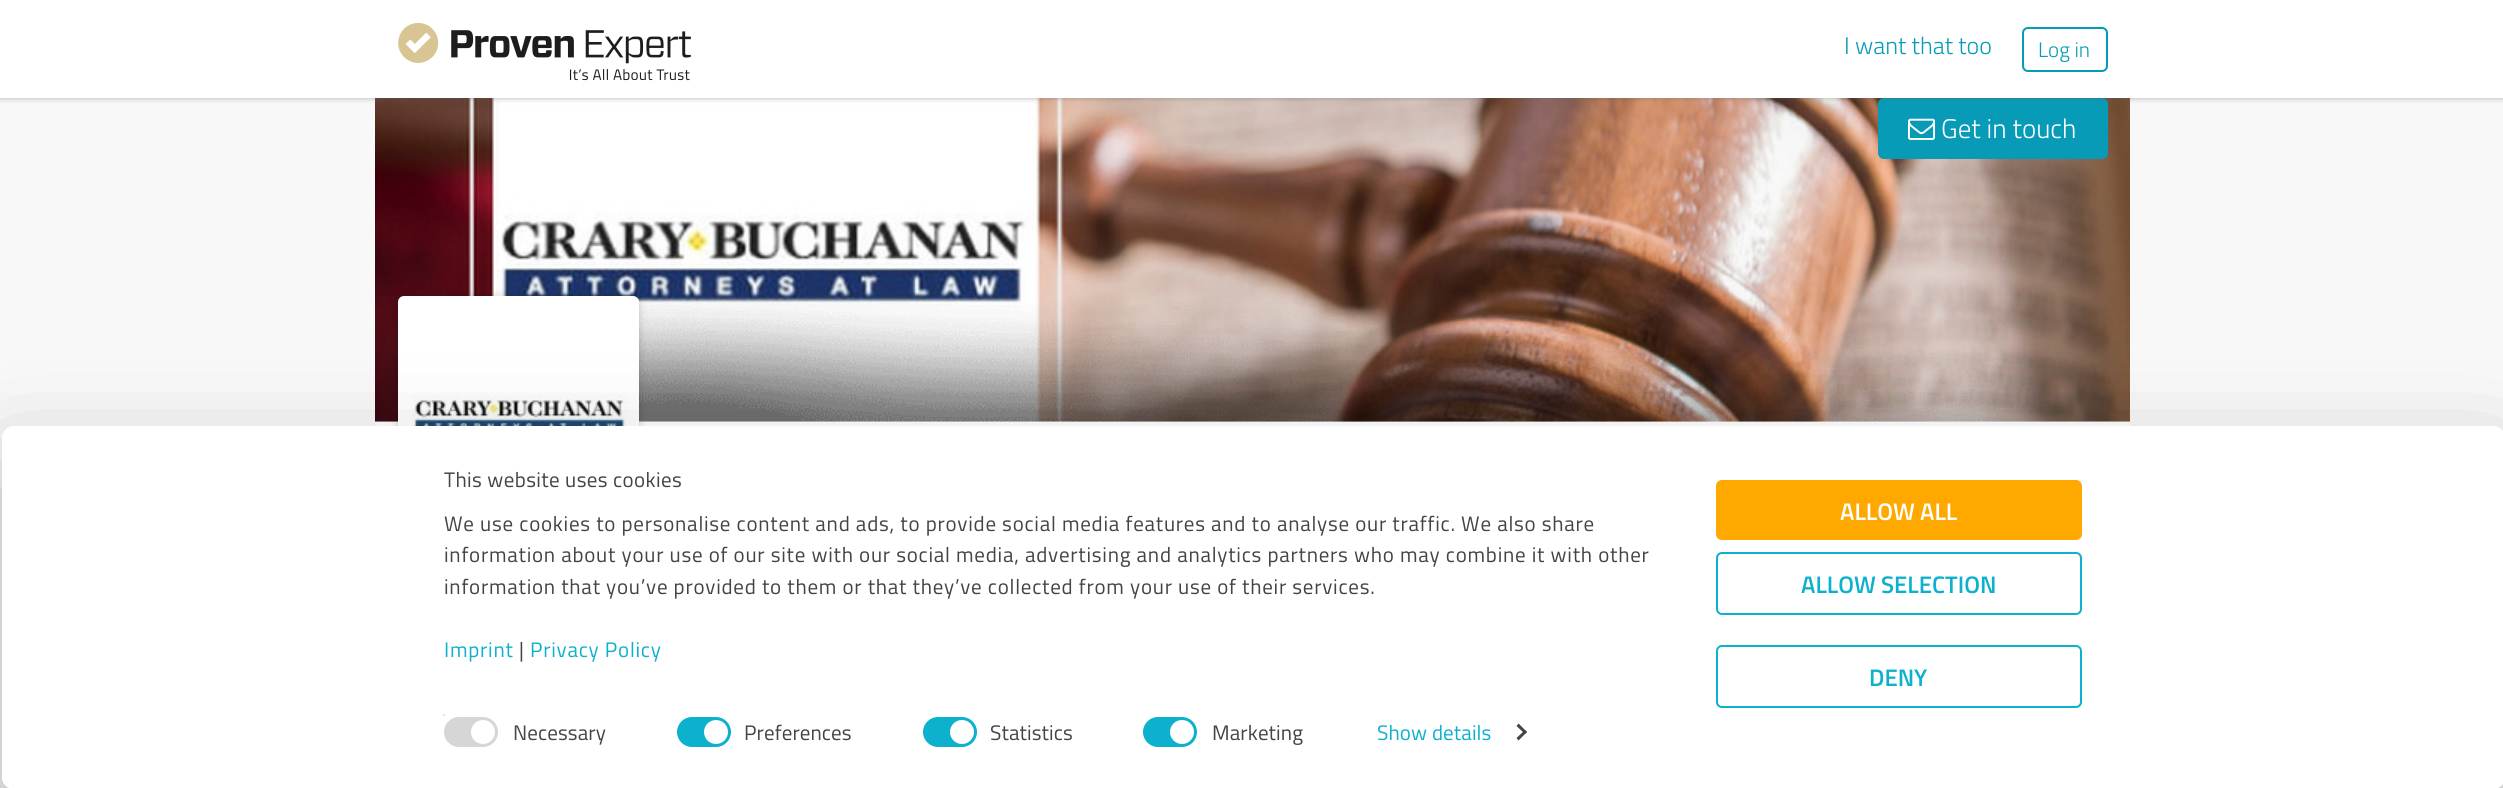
import math
import cairo


def write_spaced(ctx, x, y, s, letter, word):
	ctx.move_to(x, y)
	for ch in s:
		ctx.show_text(ch)
		ctx.rel_move_to(letter + word * (ch == ' '), 0)

def round_path(ctx, x, y, w, h, r):
	ctx.new_sub_path()
	for i, (u, v) in enumerate([(x + w - r, y + h - r), (x + r, y + h - r), (x + r, y + r), (x + w - r, y + r)]):
		ctx.arc(u, v, r, i * math.pi / 2, (i + 1) * math.pi / 2)
	ctx.close_path()

def blur_box(ctx, x, y, w, h, r, blur, alpha):
	ctx.push_group_with_content(cairo.CONTENT_ALPHA)
	ctx.set_operator(cairo.OPERATOR_SOURCE)
	for i in range(15, -16, -2):
		e = blur * i / 6
		if min(w, h) + 2 * e > 0:
			ctx.set_source_rgba(0, 0, 0, alpha * math.erfc((i - 1) / 8.5) / 2)
			round_path(ctx, x - e, y - e, w + 2 * e, h + 2 * e, max(0, min(r + e + blur * .6, min(w, h) / 2 + e)))
			ctx.fill()
	ctx.mask(ctx.pop_group())

def paste(ctx, path, x, y, w, h):
	ctx.save()
	ctx.set_source_surface(cairo.ImageSurface.create_from_png(path), x, y)
	ctx.rectangle(x, y, w, h)
	ctx.fill()
	ctx.restore()

def draw(ctx):
	ctx.set_source_rgb(0.969, 0.969, 0.969)
	ctx.paint()
	paste(ctx, 'media/2.png', 375, 98, 1755, 324)
	ctx.set_source_rgb(0.031, 0.608, 0.718)
	round_path(ctx, 1878, 98, 230, 61, 6)
	ctx.fill()
	ctx.set_source_rgb(0.412, 0.412, 0.412)
	blur_box(ctx, 0, 0, 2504, 98, 0, 3, 0.5)
	ctx.set_source_rgb(1, 1, 1)
	ctx.rectangle(0, 0, 2503, 98)
	ctx.fill()
	paste(ctx, 'media/1.png', 398, 23, 293, 58)
	ctx.select_font_face('Titillium Web Light')
	ctx.set_font_size(24)
	ctx.set_source_rgb(0.031, 0.608, 0.718)
	ctx.move_to(1844, 54)
	ctx.show_text('I want that too')
	round_path(ctx, 2023, 28, 84, 43, 5)
	ctx.stroke()
	ctx.set_font_size(21)
	ctx.move_to(2038, 57)
	ctx.show_text('Log in')
	paste(ctx, 'media/3.png', 1908, 118, 27, 22)
	ctx.set_font_size(27)
	ctx.set_source_rgb(1, 1, 1)
	ctx.move_to(1941, 138)
	ctx.show_text('Get in touch')
	paste(ctx, 'media/4.png', 375, 299, 1755, 123)
	ctx.rectangle(375, 422, 1755, 4)
	ctx.fill()
	ctx.set_source_rgb(0, 0, 0)
	blur_box(ctx, 398, 297, 241, 242, 6, 4.5, 0.2)
	round_path(ctx, 399.5, 297.5, 238, 238, 4.5)
	ctx.set_source_rgb(1, 1, 1)
	ctx.set_line_width(3)
	ctx.stroke()
	paste(ctx, 'media/5.png', 401, 299, 235, 127)
	ctx.save()
	ctx.set_fill_rule(cairo.FILL_RULE_EVEN_ODD)
	ctx.new_path()
	ctx.move_to(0, 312)
	ctx.line_to(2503, 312)
	ctx.line_to(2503, 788)
	ctx.line_to(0, 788)
	ctx.close_path()
	ctx.move_to(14, 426)
	ctx.line_to(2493, 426)
	ctx.curve_to(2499.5, 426, 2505, 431.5, 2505, 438)
	ctx.line_to(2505, 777)
	ctx.curve_to(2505, 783.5, 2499.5, 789, 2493, 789)
	ctx.line_to(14, 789)
	ctx.curve_to(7.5, 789, 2, 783.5, 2, 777)
	ctx.line_to(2, 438)
	ctx.curve_to(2, 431.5, 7.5, 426, 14, 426)
	ctx.close_path()
	ctx.clip()
	ctx.set_source_rgb(0, 0, 0)
	blur_box(ctx, 2, 471, 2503, 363, 12, 52.5, 0.3)
	ctx.restore()
	round_path(ctx, 2, 426, 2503, 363, 12)
	ctx.fill()
	ctx.select_font_face('Titillium Web')
	ctx.set_font_size(21)
	ctx.set_source_rgb(0.267, 0.267, 0.267)
	write_spaced(ctx, 444, 487, 'This website uses cookies', 0.4, 0)
	for x, y, s in [
		(444, 531, 'We use cookies to personalise content and ads, to provide social media features and to analyse our traffic. We also share'),
		(444, 562, 'information about your use of our site with our social media, advertising and analytics partners who may combine it with other'),
		(444, 594, 'information that you’ve provided to them or that they’ve collected from your use of their services.'),
	]:
		write_spaced(ctx, x, y, s, 0.75, 0)
	ctx.set_source_rgb(0.051, 0.694, 0.804)
	write_spaced(ctx, 444, 657, 'Imprint', 0.75, 0)
	ctx.set_source_rgb(0.267, 0.267, 0.267)
	write_spaced(ctx, 519, 657, '|', 0.75, 0)
	ctx.set_source_rgb(0.051, 0.694, 0.804)
	write_spaced(ctx, 530, 657, 'Privacy Policy', 0.75, 0)
	ctx.set_source_rgb(0.898, 0.898, 0.898)
	ctx.rectangle(443, 714, 2, 2)
	ctx.fill()
	ctx.set_source_rgb(0.839, 0.839, 0.839)
	round_path(ctx, 444, 717, 54, 30, 15)
	ctx.fill()
	ctx.set_source_rgb(1, 1, 1)
	ctx.arc(483, 732, 12, 0, 2 * math.pi)
	ctx.fill()
	ctx.set_source_rgb(0.267, 0.267, 0.267)
	write_spaced(ctx, 513, 740, 'Necessary', 0.1, 0)
	ctx.set_source_rgb(0.051, 0.694, 0.804)
	round_path(ctx, 677, 717, 54, 30, 15)
	ctx.fill()
	ctx.set_source_rgb(1, 1, 1)
	ctx.arc(716, 732, 12, 0, 2 * math.pi)
	ctx.fill()
	ctx.set_source_rgb(0.267, 0.267, 0.267)
	write_spaced(ctx, 744, 740, 'Preferences', 0.1, 0)
	ctx.set_source_rgb(0.051, 0.694, 0.804)
	round_path(ctx, 923, 717, 54, 30, 15)
	ctx.fill()
	ctx.set_source_rgb(1, 1, 1)
	ctx.arc(962, 732, 12, 0, 2 * math.pi)
	ctx.fill()
	ctx.set_source_rgb(0.267, 0.267, 0.267)
	write_spaced(ctx, 990, 740, 'Statistics', 0.1, 0)
	ctx.set_source_rgb(0.051, 0.694, 0.804)
	round_path(ctx, 1143, 717, 54, 30, 15)
	ctx.fill()
	ctx.set_source_rgb(1, 1, 1)
	ctx.arc(1182, 732, 12, 0, 2 * math.pi)
	ctx.fill()
	ctx.set_source_rgb(0.267, 0.267, 0.267)
	write_spaced(ctx, 1212, 740, 'Marketing', 0.1, 0)
	ctx.set_source_rgb(0.051, 0.694, 0.804)
	write_spaced(ctx, 1377, 740, 'Show details', 0.1, 0)
	ctx.set_source_rgb(0.267, 0.267, 0.267)
	ctx.new_path()
	ctx.move_to(1518.5, 723.5)
	ctx.line_to(1527, 732)
	ctx.line_to(1525, 734)
	ctx.line_to(1516.5, 726)
	ctx.close_path()
	ctx.fill()
	ctx.new_path()
	ctx.move_to(1525, 730)
	ctx.line_to(1527, 732)
	ctx.line_to(1518.5, 740.5)
	ctx.line_to(1516.5, 738)
	ctx.close_path()
	ctx.fill()
	ctx.set_source_rgb(1, 0.659, 0)
	round_path(ctx, 1716, 480, 366, 60, 6)
	ctx.fill()
	ctx.select_font_face('Titillium Web SemiBold')
	ctx.set_font_size(24)
	ctx.set_source_rgb(1, 1, 1)
	ctx.move_to(1840, 520)
	ctx.show_text('ALLOW ALL')
	round_path(ctx, 1717, 553, 364, 61, 5)
	ctx.set_source_rgb(0.051, 0.694, 0.804)
	ctx.set_line_width(2)
	ctx.stroke()
	ctx.move_to(1801, 593)
	ctx.show_text('ALLOW SELECTION')
	round_path(ctx, 1717, 646, 364, 61, 5)
	ctx.stroke()
	ctx.move_to(1869, 686)
	ctx.show_text('DENY')


surface = cairo.ImageSurface(cairo.FORMAT_RGB24, 2503, 788)
ctx = cairo.Context(surface)
options = cairo.FontOptions()
options.set_hint_metrics(cairo.HINT_METRICS_OFF)
options.set_hint_style(cairo.HINT_STYLE_NONE)
ctx.set_font_options(options)
ctx.set_miter_limit(4)
draw(ctx)
surface.write_to_png('image.png')
